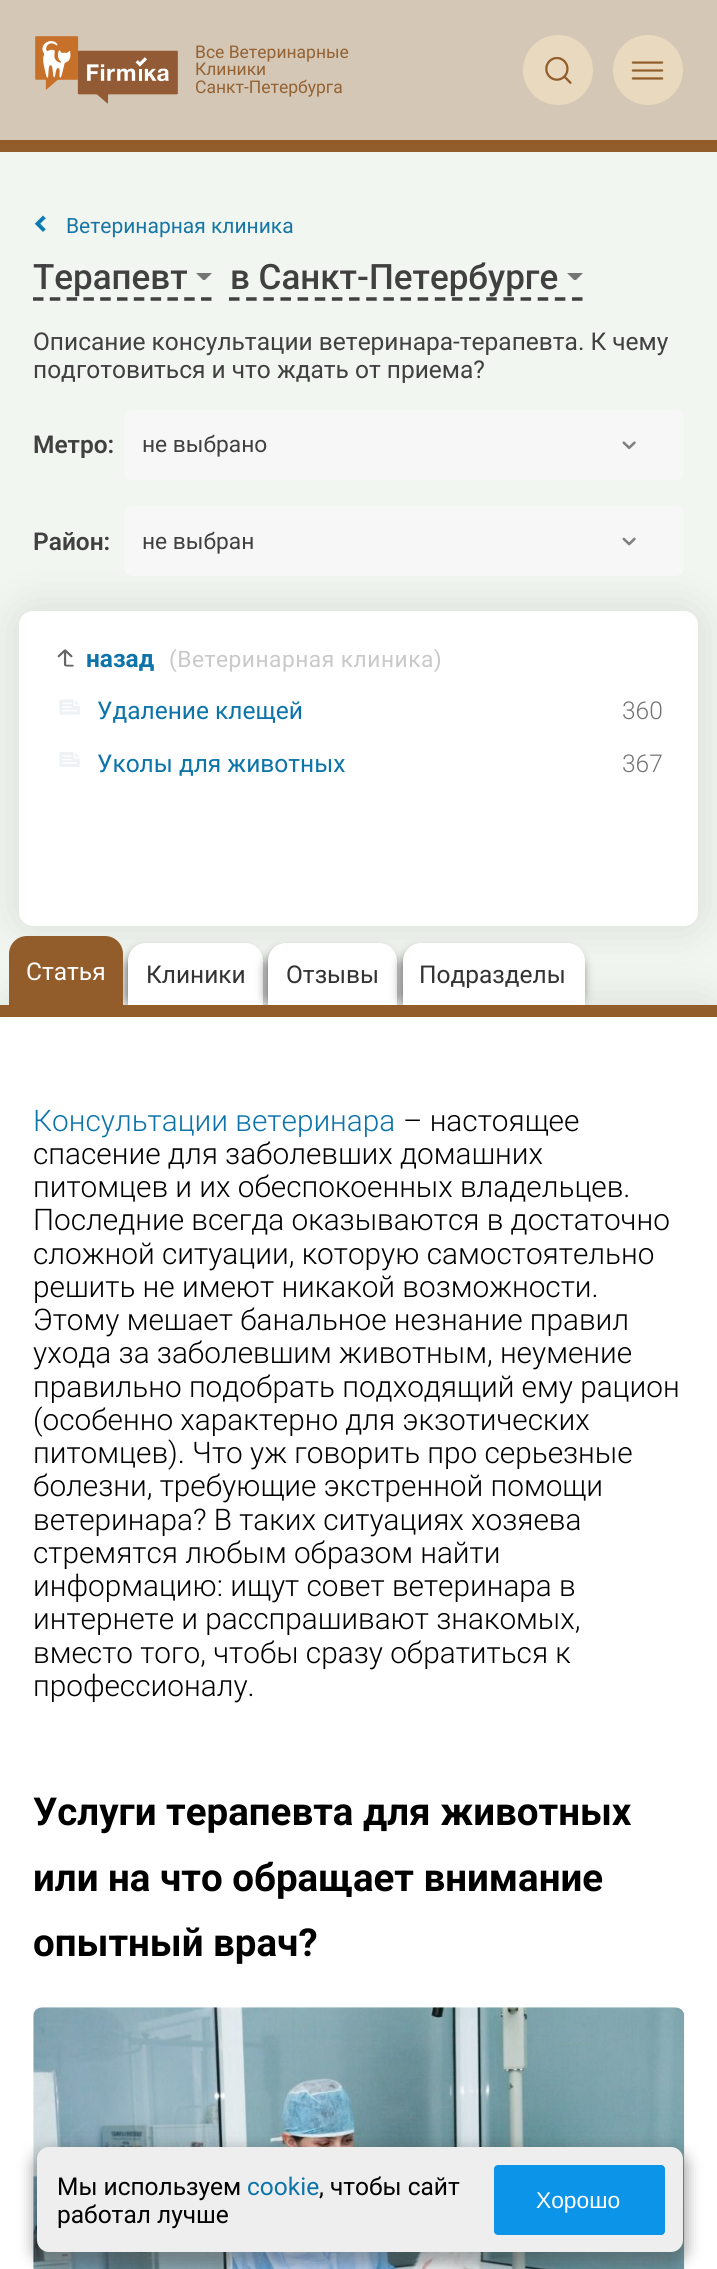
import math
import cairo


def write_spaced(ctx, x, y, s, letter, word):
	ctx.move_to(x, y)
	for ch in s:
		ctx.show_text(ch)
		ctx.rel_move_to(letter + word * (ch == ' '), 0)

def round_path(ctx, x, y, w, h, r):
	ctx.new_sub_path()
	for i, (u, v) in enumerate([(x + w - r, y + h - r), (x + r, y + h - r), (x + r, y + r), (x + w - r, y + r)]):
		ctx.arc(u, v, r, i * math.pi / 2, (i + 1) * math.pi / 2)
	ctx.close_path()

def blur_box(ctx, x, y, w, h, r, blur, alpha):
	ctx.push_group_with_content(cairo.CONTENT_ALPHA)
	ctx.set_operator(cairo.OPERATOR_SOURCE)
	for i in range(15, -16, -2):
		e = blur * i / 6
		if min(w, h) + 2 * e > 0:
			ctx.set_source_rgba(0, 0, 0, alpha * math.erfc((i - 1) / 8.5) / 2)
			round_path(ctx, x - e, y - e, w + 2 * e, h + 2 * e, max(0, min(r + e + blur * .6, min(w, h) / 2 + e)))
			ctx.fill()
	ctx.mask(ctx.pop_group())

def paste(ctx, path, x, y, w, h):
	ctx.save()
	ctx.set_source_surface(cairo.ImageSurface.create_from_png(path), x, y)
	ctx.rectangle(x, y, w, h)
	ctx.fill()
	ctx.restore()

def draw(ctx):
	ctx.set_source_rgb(0.945, 0.961, 0.941)
	ctx.paint()
	ctx.set_source_rgb(0.831, 0.78, 0.71)
	ctx.rectangle(0, 0, 717, 140)
	ctx.fill()
	paste(ctx, 'media/1.png', 35, 36, 143, 68)
	ctx.select_font_face('Roboto')
	ctx.set_font_size(17.5)
	ctx.set_source_rgb(0.58, 0.384, 0.2)
	for x, y, s in [
		(195, 58, 'Все Ветеринарные'),
		(195, 75, 'Клиники'),
		(195, 93, 'Санкт-Петербурга'),
	]:
		ctx.move_to(x, y)
		ctx.show_text(s)
	ctx.set_source_rgb(0.914, 0.851, 0.745)
	ctx.new_path()
	ctx.arc(558, 70, 35, 0, 2 * math.pi)
	ctx.fill()
	paste(ctx, 'media/2.png', 545, 56, 27, 28)
	ctx.arc(648, 70, 35, 0, 2 * math.pi)
	ctx.fill()
	paste(ctx, 'media/3.png', 631, 61, 33, 19)
	ctx.set_source_rgb(0.573, 0.365, 0.165)
	ctx.rectangle(0, 140, 717, 12)
	ctx.fill()
	paste(ctx, 'media/4.png', 34, 215, 12, 17)
	ctx.set_font_size(21)
	ctx.set_source_rgb(0.09, 0.463, 0.651)
	ctx.move_to(66, 233)
	ctx.show_text('Ветеринарная клиника')
	ctx.new_path()
	ctx.move_to(33, 299)
	ctx.line_to(212, 299)
	ctx.set_source_rgb(0.251, 0.251, 0.251)
	ctx.set_line_width(3.5)
	ctx.set_dash([10.5, 6.3])
	ctx.stroke()
	ctx.select_font_face('Roboto Medium')
	ctx.set_font_size(35)
	ctx.move_to(33, 289)
	ctx.show_text('Терапевт')
	ctx.set_source_rgb(0.459, 0.459, 0.459)
	ctx.new_path()
	ctx.move_to(196, 273)
	ctx.line_to(212, 273)
	ctx.line_to(205, 280)
	ctx.line_to(203, 280)
	ctx.close_path()
	ctx.fill()
	ctx.new_path()
	ctx.move_to(229, 299)
	ctx.line_to(583, 299)
	ctx.set_source_rgb(0.251, 0.251, 0.251)
	ctx.set_dash([10.5, 6.65])
	ctx.stroke()
	ctx.move_to(230, 289)
	ctx.show_text('в Санкт-Петербурге')
	ctx.set_source_rgb(0.459, 0.459, 0.459)
	ctx.new_path()
	ctx.move_to(567, 273)
	ctx.line_to(583, 273)
	ctx.line_to(576, 280)
	ctx.line_to(574, 280)
	ctx.close_path()
	ctx.fill()
	ctx.select_font_face('Roboto')
	ctx.set_font_size(24.5)
	ctx.set_source_rgb(0.251, 0.251, 0.251)
	ctx.move_to(33, 350)
	ctx.show_text('Описание консультации ветеринара-терапевта. К чему')
	ctx.move_to(33, 378)
	ctx.show_text('подготовиться и что ждать от приема?')
	ctx.select_font_face('Roboto SemiBold')
	ctx.move_to(33, 453)
	ctx.show_text('Метро:')
	ctx.set_source_rgb(0.965, 0.965, 0.965)
	round_path(ctx, 124, 410, 560, 70, 9)
	ctx.fill()
	ctx.select_font_face('Roboto')
	ctx.set_font_size(22.75)
	ctx.set_source_rgb(0.251, 0.251, 0.251)
	ctx.move_to(142, 452)
	ctx.show_text('не выбрано')
	paste(ctx, 'media/5.png', 622, 441, 14, 9)
	ctx.select_font_face('Roboto SemiBold')
	ctx.set_font_size(24.5)
	ctx.move_to(33, 550)
	ctx.show_text('Район:')
	ctx.set_source_rgb(0, 0, 0)
	blur_box(ctx, 16, 607, 686, 322, 18, 21, 0.1)
	ctx.set_source_rgb(0.965, 0.965, 0.965)
	round_path(ctx, 124, 506, 560, 70, 9)
	ctx.fill()
	ctx.select_font_face('Roboto')
	ctx.set_font_size(22.75)
	ctx.set_source_rgb(0.251, 0.251, 0.251)
	ctx.move_to(142, 549)
	ctx.show_text('не выбран')
	paste(ctx, 'media/6.png', 622, 537, 14, 9)
	ctx.set_source_rgb(1, 1, 1)
	round_path(ctx, 19, 611, 679, 315, 14)
	ctx.fill()
	paste(ctx, 'media/7.png', 57, 649, 17, 18)
	ctx.select_font_face('Roboto', cairo.FONT_SLANT_NORMAL, cairo.FONT_WEIGHT_BOLD)
	ctx.set_font_size(24.5)
	ctx.set_source_rgb(0.047, 0.455, 0.663)
	ctx.move_to(86, 667)
	ctx.show_text('назад')
	ctx.select_font_face('Roboto')
	ctx.set_font_size(22.75)
	ctx.set_source_rgb(0.788, 0.788, 0.788)
	write_spaced(ctx, 169, 667, '(Ветеринарная клиника)', 0.5, 0)
	paste(ctx, 'media/8.png', 59, 699, 21, 16)
	ctx.set_font_size(24.5)
	ctx.set_source_rgb(0.047, 0.455, 0.663)
	ctx.move_to(97, 719)
	ctx.show_text('Удаление клещей')
	ctx.select_font_face('Roboto Light')
	ctx.set_source_rgb(0.451, 0.451, 0.451)
	ctx.move_to(622, 719)
	ctx.show_text('360')
	paste(ctx, 'media/9.png', 59, 752, 21, 15)
	ctx.select_font_face('Roboto')
	ctx.set_source_rgb(0.047, 0.455, 0.663)
	ctx.move_to(97, 772)
	ctx.show_text('Уколы для животных')
	ctx.select_font_face('Roboto Light')
	ctx.set_source_rgb(0.451, 0.451, 0.451)
	ctx.move_to(622, 772)
	ctx.show_text('367')
	ctx.set_source_rgb(0, 0, 0)
	blur_box(ctx, -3, 1001, 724, 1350, 19, 21, 0.1)
	ctx.set_source_rgb(1, 1, 1)
	round_path(ctx, 0, 1005, 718, 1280, 16)
	ctx.fill()
	ctx.save()
	ctx.rectangle(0, 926, 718, 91)
	ctx.clip()
	ctx.set_source_rgb(0.42, 0.42, 0.42)
	blur_box(ctx, 126, 950, 135, 62, 18, 5, 1)
	ctx.restore()
	ctx.set_source_rgb(0.573, 0.365, 0.165)
	ctx.new_path()
	ctx.move_to(27, 936)
	ctx.line_to(105, 936)
	ctx.curve_to(115, 936, 123, 944, 123, 954)
	ctx.line_to(123, 1006)
	ctx.line_to(9, 1006)
	ctx.line_to(9, 954)
	ctx.curve_to(9, 944, 17, 936, 27, 936)
	ctx.close_path()
	ctx.fill()
	ctx.select_font_face('Roboto')
	ctx.set_source_rgb(1, 1, 1)
	ctx.move_to(26, 980)
	ctx.show_text('Статья')
	ctx.new_path()
	ctx.move_to(146, 943)
	ctx.line_to(245, 943)
	ctx.curve_to(255, 943, 263, 951, 263, 961)
	ctx.line_to(263, 1005)
	ctx.line_to(128, 1005)
	ctx.line_to(128, 961)
	ctx.curve_to(128, 951, 136, 943, 146, 943)
	ctx.close_path()
	ctx.fill()
	ctx.set_source_rgb(0.2, 0.2, 0.2)
	ctx.move_to(146, 983)
	ctx.show_text('Клиники')
	ctx.save()
	ctx.rectangle(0, 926, 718, 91)
	ctx.clip()
	ctx.set_source_rgb(0.42, 0.42, 0.42)
	blur_box(ctx, 266, 950, 130, 62, 18, 5, 1)
	ctx.restore()
	ctx.set_source_rgb(1, 1, 1)
	ctx.new_path()
	ctx.move_to(286, 943)
	ctx.line_to(379, 943)
	ctx.curve_to(389, 943, 397, 951, 397, 961)
	ctx.line_to(397, 1005)
	ctx.line_to(268, 1005)
	ctx.line_to(268, 961)
	ctx.curve_to(268, 951, 276, 943, 286, 943)
	ctx.close_path()
	ctx.fill()
	ctx.set_source_rgb(0.2, 0.2, 0.2)
	ctx.move_to(286, 983)
	ctx.show_text('Отзывы')
	ctx.save()
	ctx.rectangle(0, 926, 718, 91)
	ctx.clip()
	ctx.set_source_rgb(0.42, 0.42, 0.42)
	blur_box(ctx, 401, 950, 182, 62, 18, 5, 1)
	ctx.restore()
	ctx.set_source_rgb(1, 1, 1)
	ctx.new_path()
	ctx.move_to(421, 943)
	ctx.line_to(567, 943)
	ctx.curve_to(577, 943, 585, 951, 585, 961)
	ctx.line_to(585, 1005)
	ctx.line_to(403, 1005)
	ctx.line_to(403, 961)
	ctx.curve_to(403, 951, 411, 943, 421, 943)
	ctx.close_path()
	ctx.fill()
	ctx.set_source_rgb(0.2, 0.2, 0.2)
	ctx.move_to(419, 983)
	ctx.show_text('Подразделы')
	ctx.set_source_rgb(0.573, 0.365, 0.165)
	ctx.rectangle(0, 1005, 717, 12)
	ctx.fill()
	ctx.select_font_face('Roboto Light')
	ctx.set_font_size(29.75)
	ctx.set_source_rgb(0.047, 0.455, 0.663)
	ctx.move_to(33, 1131)
	ctx.show_text('Консультации ветеринара')
	ctx.set_source_rgb(0, 0, 0)
	for x, y, s in [
		(403, 1131, '– настоящее'),
		(33, 1164, 'спасение для заболевших домашних'),
		(33, 1197, 'питомцев и их обеспокоенных владельцев.'),
		(33, 1230, 'Последние всегда оказываются в достаточно'),
		(33, 1264, 'сложной ситуации, которую самостоятельно'),
		(33, 1297, 'решить не имеют никакой возможности.'),
		(33, 1330, 'Этому мешает банальное незнание правил'),
		(33, 1363, 'ухода за заболевшим животным, неумение'),
		(33, 1397, 'правильно подобрать подходящий ему рацион'),
		(33, 1430, '(особенно характерно для экзотических'),
		(33, 1463, 'питомцев). Что уж говорить про серьезные'),
		(33, 1496, 'болезни, требующие экстренной помощи'),
		(33, 1530, 'ветеринара? В таких ситуациях хозяева'),
		(33, 1563, 'стремятся любым образом найти'),
		(33, 1596, 'информацию: ищут совет ветеринара в'),
		(33, 1629, 'интернете и расспрашивают знакомых,'),
		(33, 1663, 'вместо того, чтобы сразу обратиться к'),
		(33, 1696, 'профессионалу.'),
	]:
		ctx.move_to(x, y)
		ctx.show_text(s)
	ctx.select_font_face('Roboto', cairo.FONT_SLANT_NORMAL, cairo.FONT_WEIGHT_BOLD)
	ctx.set_font_size(38.5)
	for x, y, s in [
		(33, 1825, 'Услуги терапевта для животных'),
		(33, 1891, 'или на что обращает внимание'),
		(33, 1956, 'опытный врач?'),
	]:
		ctx.move_to(x, y)
		ctx.show_text(s)
	paste(ctx, 'media/10.png', 33, 2007, 652, 262)
	ctx.set_source_rgb(0.251, 0.251, 0.251)
	blur_box(ctx, 32, 2149, 656, 116, 18, 7, 0.42)
	ctx.set_source_rgb(0.933, 0.933, 0.933)
	round_path(ctx, 37, 2147, 646, 105, 12)
	ctx.fill()
	ctx.select_font_face('Roboto')
	ctx.set_font_size(24.5)
	ctx.set_source_rgb(0, 0, 0)
	ctx.move_to(57, 2195)
	ctx.show_text('Мы используем')
	ctx.set_source_rgb(0.047, 0.455, 0.663)
	ctx.move_to(247, 2195)
	ctx.show_text('cookie')
	ctx.set_source_rgb(0, 0, 0)
	ctx.move_to(319, 2195)
	ctx.show_text(', чтобы сайт')
	ctx.move_to(57, 2223)
	ctx.show_text('работал лучше')
	ctx.set_source_rgb(0.047, 0.58, 0.91)
	round_path(ctx, 494, 2165, 171, 70, 4)
	ctx.fill()
	ctx.select_font_face('Liberation Sans')
	ctx.set_font_size(22.75)
	ctx.set_source_rgb(1, 1, 1)
	ctx.move_to(536, 2208)
	ctx.show_text('Хорошо')


surface = cairo.ImageSurface(cairo.FORMAT_RGB24, 717, 2269)
ctx = cairo.Context(surface)
options = cairo.FontOptions()
options.set_hint_metrics(cairo.HINT_METRICS_OFF)
options.set_hint_style(cairo.HINT_STYLE_NONE)
ctx.set_font_options(options)
ctx.set_miter_limit(4)
draw(ctx)
surface.write_to_png('image.png')
